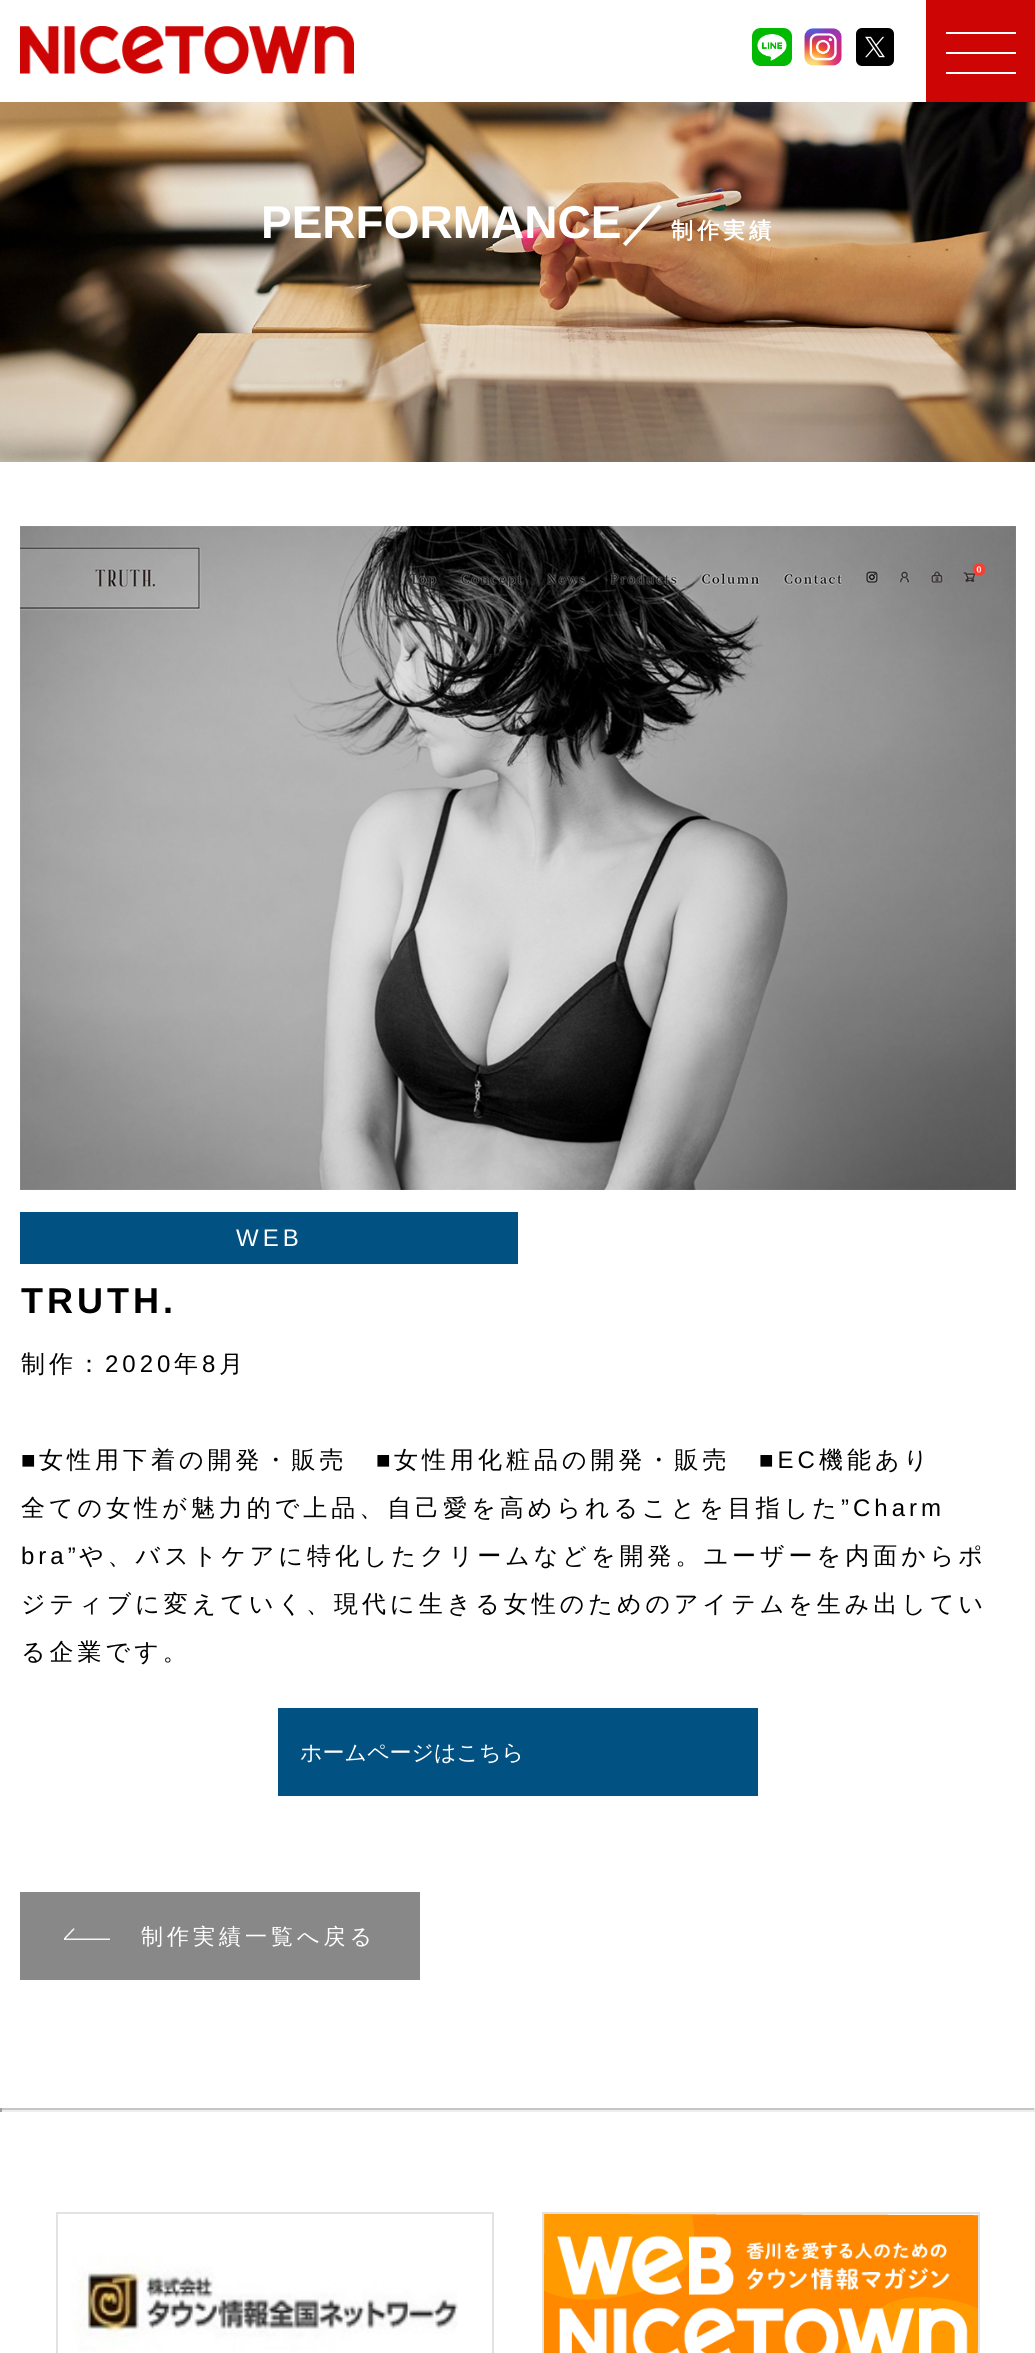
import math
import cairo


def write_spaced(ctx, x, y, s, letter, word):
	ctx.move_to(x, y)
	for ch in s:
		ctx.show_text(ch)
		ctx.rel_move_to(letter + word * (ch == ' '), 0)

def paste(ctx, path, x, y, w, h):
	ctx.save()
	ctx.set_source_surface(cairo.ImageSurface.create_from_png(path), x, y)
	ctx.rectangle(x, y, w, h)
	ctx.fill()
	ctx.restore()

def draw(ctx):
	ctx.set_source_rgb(1, 1, 1)
	ctx.paint()
	paste(ctx, 'media/1.png', 20, 26, 334, 48)
	paste(ctx, 'media/2.png', 752, 28, 40, 38)
	paste(ctx, 'media/3.png', 804, 28, 38, 38)
	paste(ctx, 'media/4.png', 856, 28, 38, 38)
	ctx.set_source_rgb(0.804, 0.024, 0.02)
	ctx.rectangle(926, 0, 109, 102)
	ctx.fill()
	ctx.set_source_rgb(1, 1, 1)
	ctx.rectangle(946, 52, 70, 2)
	ctx.rectangle(946, 32, 70, 2)
	ctx.rectangle(946, 72, 70, 2)
	ctx.fill()
	paste(ctx, 'media/5.png', 0, 102, 1035, 360)
	ctx.select_font_face('Liberation Sans', cairo.FONT_SLANT_NORMAL, cairo.FONT_WEIGHT_BOLD)
	ctx.set_font_size(46)
	ctx.move_to(261, 238)
	ctx.show_text('PERFORMANCE')
	ctx.select_font_face('WenQuanYi Zen Hei', cairo.FONT_SLANT_NORMAL, cairo.FONT_WEIGHT_BOLD)
	write_spaced(ctx, 621, 238, '／', 4, 0)
	ctx.set_font_size(22)
	write_spaced(ctx, 671, 238, '制作実績', 4, 0)
	paste(ctx, 'media/6.png', 20, 526, 996, 664)
	ctx.set_source_rgb(0.008, 0.318, 0.514)
	ctx.rectangle(20, 1212, 498, 52)
	ctx.fill()
	ctx.select_font_face('Liberation Sans')
	ctx.set_font_size(24)
	ctx.set_source_rgb(1, 1, 1)
	write_spaced(ctx, 236, 1246, 'WEB', 4, 0)
	ctx.select_font_face('Liberation Sans', cairo.FONT_SLANT_NORMAL, cairo.FONT_WEIGHT_BOLD)
	ctx.set_font_size(36)
	ctx.set_source_rgb(0, 0, 0)
	write_spaced(ctx, 21, 1313, 'TRUTH.', 4, 0)
	ctx.select_font_face('WenQuanYi Zen Hei Medium')
	ctx.set_font_size(24)
	write_spaced(ctx, 21, 1372, '制作：', 4, 0)
	ctx.select_font_face('Liberation Sans')
	write_spaced(ctx, 105, 1372, '2020', 4, 0)
	ctx.select_font_face('WenQuanYi Zen Hei Medium')
	write_spaced(ctx, 174, 1372, '年', 4, 0)
	ctx.select_font_face('Liberation Sans')
	write_spaced(ctx, 202, 1372, '8', 4, 0)
	ctx.select_font_face('WenQuanYi Zen Hei Medium')
	write_spaced(ctx, 219, 1372, '月', 4, 0)
	ctx.select_font_face('Liberation Sans')
	write_spaced(ctx, 21, 1468, '■', 4, 0)
	ctx.select_font_face('WenQuanYi Zen Hei Medium')
	write_spaced(ctx, 39, 1468, '女性用下着の開発・販売', 4, 0)
	ctx.select_font_face('Liberation Sans')
	write_spaced(ctx, 376, 1468, '■', 4, 0)
	ctx.select_font_face('WenQuanYi Zen Hei Medium')
	write_spaced(ctx, 394, 1468, '女性用化粧品の開発・販売', 4, 0)
	ctx.select_font_face('Liberation Sans')
	write_spaced(ctx, 759, 1468, '■EC', 4, 0)
	ctx.select_font_face('WenQuanYi Zen Hei Medium')
	write_spaced(ctx, 819, 1468, '機能あり', 4, 0)
	write_spaced(ctx, 21, 1516, '全ての女性が魅力的で上品、自己愛を高められることを目指した', 4, 0)
	ctx.select_font_face('Liberation Sans')
	write_spaced(ctx, 841, 1516, '”Charm', 4, 0)
	write_spaced(ctx, 21, 1564, 'bra”', 4, 0)
	ctx.select_font_face('WenQuanYi Zen Hei Medium')
	for x, y, s in [
		(79, 1564, 'や、バストケアに特化したクリームなどを開発。ユーザーを内面からポ'),
		(21, 1612, 'ジティブに変えていく、現代に生きる女性のためのアイテムを生み出してい'),
		(21, 1660, 'る企業です。'),
	]:
		write_spaced(ctx, x, y, s, 4, 0)
	ctx.set_source_rgb(0.008, 0.318, 0.514)
	ctx.rectangle(278, 1708, 480, 88)
	ctx.fill()
	ctx.set_font_size(22)
	ctx.set_source_rgb(1, 1, 1)
	ctx.move_to(300, 1760)
	ctx.show_text('ホームページはこちら')
	ctx.set_source_rgb(0.533, 0.533, 0.533)
	ctx.rectangle(20, 1892, 400, 88)
	ctx.fill()
	paste(ctx, 'media/7.png', 64, 1928, 46, 12)
	ctx.set_source_rgb(1, 1, 1)
	write_spaced(ctx, 141, 1944, '制作実績一覧へ戻る', 4, 0)
	ctx.set_source_rgb(0.773, 0.773, 0.773)
	ctx.rectangle(0, 2108, 1035, 2)
	ctx.fill()
	ctx.set_source_rgb(0.933, 0.933, 0.933)
	ctx.rectangle(1034, 2108, 1, 4)
	ctx.rectangle(0, 2110, 1035, 2)
	ctx.fill()
	ctx.set_source_rgb(0.624, 0.624, 0.624)
	ctx.rectangle(0, 2108, 2, 4)
	ctx.fill()
	ctx.rectangle(57, 2213, 436, 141)
	ctx.set_source_rgb(0.886, 0.886, 0.886)
	ctx.stroke()
	paste(ctx, 'media/8.png', 70, 2253, 388, 99)
	ctx.rectangle(543, 2213, 436, 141)
	ctx.stroke()
	paste(ctx, 'media/9.png', 544, 2214, 434, 139)


surface = cairo.ImageSurface(cairo.FORMAT_RGB24, 1035, 2353)
ctx = cairo.Context(surface)
options = cairo.FontOptions()
options.set_hint_metrics(cairo.HINT_METRICS_OFF)
options.set_hint_style(cairo.HINT_STYLE_NONE)
ctx.set_font_options(options)
ctx.set_miter_limit(4)
draw(ctx)
surface.write_to_png('image.png')
